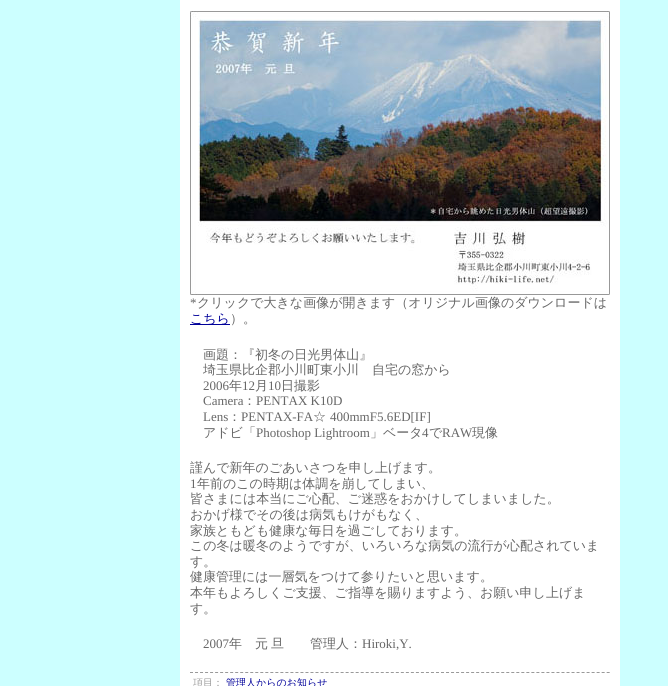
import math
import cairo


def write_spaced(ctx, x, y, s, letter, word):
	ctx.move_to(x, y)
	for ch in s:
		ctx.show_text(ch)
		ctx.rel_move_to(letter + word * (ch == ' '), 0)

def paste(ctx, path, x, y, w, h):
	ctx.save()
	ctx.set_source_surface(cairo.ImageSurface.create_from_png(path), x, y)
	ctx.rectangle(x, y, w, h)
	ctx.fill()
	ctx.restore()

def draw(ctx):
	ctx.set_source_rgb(0.8, 1, 1)
	ctx.paint()
	ctx.set_source_rgb(1, 1, 1)
	ctx.rectangle(180, 0, 440, 686)
	ctx.fill()
	paste(ctx, 'media/1.png', 190, 11, 420, 284)
	ctx.select_font_face('Liberation Serif')
	ctx.set_font_size(13)
	ctx.set_source_rgb(0.4, 0.4, 0.4)
	ctx.move_to(190, 307)
	ctx.show_text('*')
	ctx.select_font_face('WenQuanYi Zen Hei Medium')
	ctx.move_to(197, 307)
	ctx.show_text('クリックで大きな画像が開きます（オリジナル画像のダウンロードは')
	ctx.set_source_rgb(0, 0, 0.6)
	ctx.rectangle(190, 324, 40, 1)
	ctx.fill()
	ctx.move_to(190, 323)
	ctx.show_text('こちら')
	ctx.set_source_rgb(0.4, 0.4, 0.4)
	for x, y, s in [
		(230, 323, '）。'),
		(203, 359, '画題：『初冬の日光男体山』'),
		(203, 374, '埼玉県比企郡小川町東小川　自宅の窓から'),
	]:
		ctx.move_to(x, y)
		ctx.show_text(s)
	ctx.select_font_face('Liberation Serif')
	ctx.move_to(203, 390)
	ctx.show_text('2006')
	ctx.select_font_face('WenQuanYi Zen Hei Medium')
	ctx.move_to(229, 390)
	ctx.show_text('年')
	ctx.select_font_face('Liberation Serif')
	ctx.move_to(242, 390)
	ctx.show_text('12')
	ctx.select_font_face('WenQuanYi Zen Hei Medium')
	ctx.move_to(255, 390)
	ctx.show_text('月')
	ctx.select_font_face('Liberation Serif')
	ctx.move_to(268, 390)
	ctx.show_text('10')
	ctx.select_font_face('WenQuanYi Zen Hei Medium')
	ctx.move_to(281, 390)
	ctx.show_text('日撮影')
	ctx.select_font_face('Liberation Serif')
	ctx.move_to(203, 405)
	ctx.show_text('Camera')
	ctx.select_font_face('WenQuanYi Zen Hei Medium')
	ctx.move_to(243, 405)
	ctx.show_text('：')
	ctx.select_font_face('Liberation Serif')
	ctx.move_to(256, 405)
	ctx.show_text('PENTAX K10D')
	ctx.move_to(203, 421)
	ctx.show_text('Lens')
	ctx.select_font_face('WenQuanYi Zen Hei Medium')
	ctx.move_to(228, 421)
	ctx.show_text('：')
	ctx.select_font_face('Liberation Serif')
	ctx.move_to(241, 421)
	ctx.show_text('PENTAX-FA')
	ctx.select_font_face('WenQuanYi Zen Hei Medium')
	ctx.move_to(313, 421)
	ctx.show_text('☆')
	ctx.select_font_face('Liberation Serif')
	ctx.move_to(330, 421)
	ctx.show_text('400mmF5.6ED[IF]')
	ctx.select_font_face('WenQuanYi Zen Hei Medium')
	ctx.move_to(203, 437)
	ctx.show_text('アドビ「')
	ctx.select_font_face('Liberation Serif')
	ctx.move_to(256, 437)
	ctx.show_text('Photoshop Lightroom')
	ctx.select_font_face('WenQuanYi Zen Hei Medium')
	ctx.move_to(370, 437)
	ctx.show_text('」ベータ')
	ctx.select_font_face('Liberation Serif')
	ctx.move_to(422, 437)
	ctx.show_text('4')
	ctx.select_font_face('WenQuanYi Zen Hei Medium')
	ctx.move_to(429, 437)
	ctx.show_text('で')
	ctx.select_font_face('Liberation Serif')
	ctx.move_to(442, 437)
	ctx.show_text('RAW')
	ctx.select_font_face('WenQuanYi Zen Hei Medium')
	ctx.move_to(472, 437)
	ctx.show_text('現像')
	ctx.move_to(190, 472)
	ctx.show_text('謹んで新年のごあいさつを申し上げます。')
	ctx.select_font_face('Liberation Serif')
	ctx.move_to(190, 488)
	ctx.show_text('1')
	ctx.select_font_face('WenQuanYi Zen Hei Medium')
	for x, y, s in [
		(197, 488, '年前のこの時期は体調を崩してしまい、'),
		(190, 503, '皆さまには本当にご心配、ご迷惑をおかけしてしまいました。'),
		(190, 519, 'おかげ様でその後は病気もけがもなく、'),
		(190, 535, '家族ともども健康な毎日を過ごしております。'),
		(190, 550, 'この冬は暖冬のようですが、いろいろな病気の流行が心配されていま'),
		(190, 566, 'す。'),
		(190, 581, '健康管理には一層気をつけて参りたいと思います。'),
		(190, 597, '本年もよろしくご支援、ご指導を賜りますよう、お願い申し上げま'),
		(190, 613, 'す。'),
	]:
		ctx.move_to(x, y)
		ctx.show_text(s)
	ctx.select_font_face('Liberation Serif')
	ctx.move_to(203, 648)
	ctx.show_text('2007')
	ctx.select_font_face('WenQuanYi Zen Hei Medium')
	write_spaced(ctx, 229, 648, '年　元 旦　　管理人：', 0, -1)
	ctx.select_font_face('Liberation Serif')
	ctx.move_to(362, 648)
	ctx.show_text('Hiroki,Y.')
	ctx.new_path()
	ctx.move_to(190, 672.5)
	ctx.line_to(610, 672.5)
	ctx.set_source_rgb(0.6, 0.6, 0.6)
	ctx.set_line_width(1)
	ctx.set_dash([3, 2.02])
	ctx.stroke()
	ctx.select_font_face('WenQuanYi Zen Hei Medium')
	ctx.set_font_size(10)
	ctx.move_to(193, 686)
	ctx.show_text('項目：')
	ctx.set_source_rgb(0, 0, 0.6)
	ctx.move_to(226, 686)
	ctx.show_text('管理人からのお知らせ')


surface = cairo.ImageSurface(cairo.FORMAT_RGB24, 668, 686)
ctx = cairo.Context(surface)
options = cairo.FontOptions()
options.set_hint_metrics(cairo.HINT_METRICS_OFF)
options.set_hint_style(cairo.HINT_STYLE_NONE)
ctx.set_font_options(options)
ctx.set_miter_limit(4)
draw(ctx)
surface.write_to_png('image.png')
